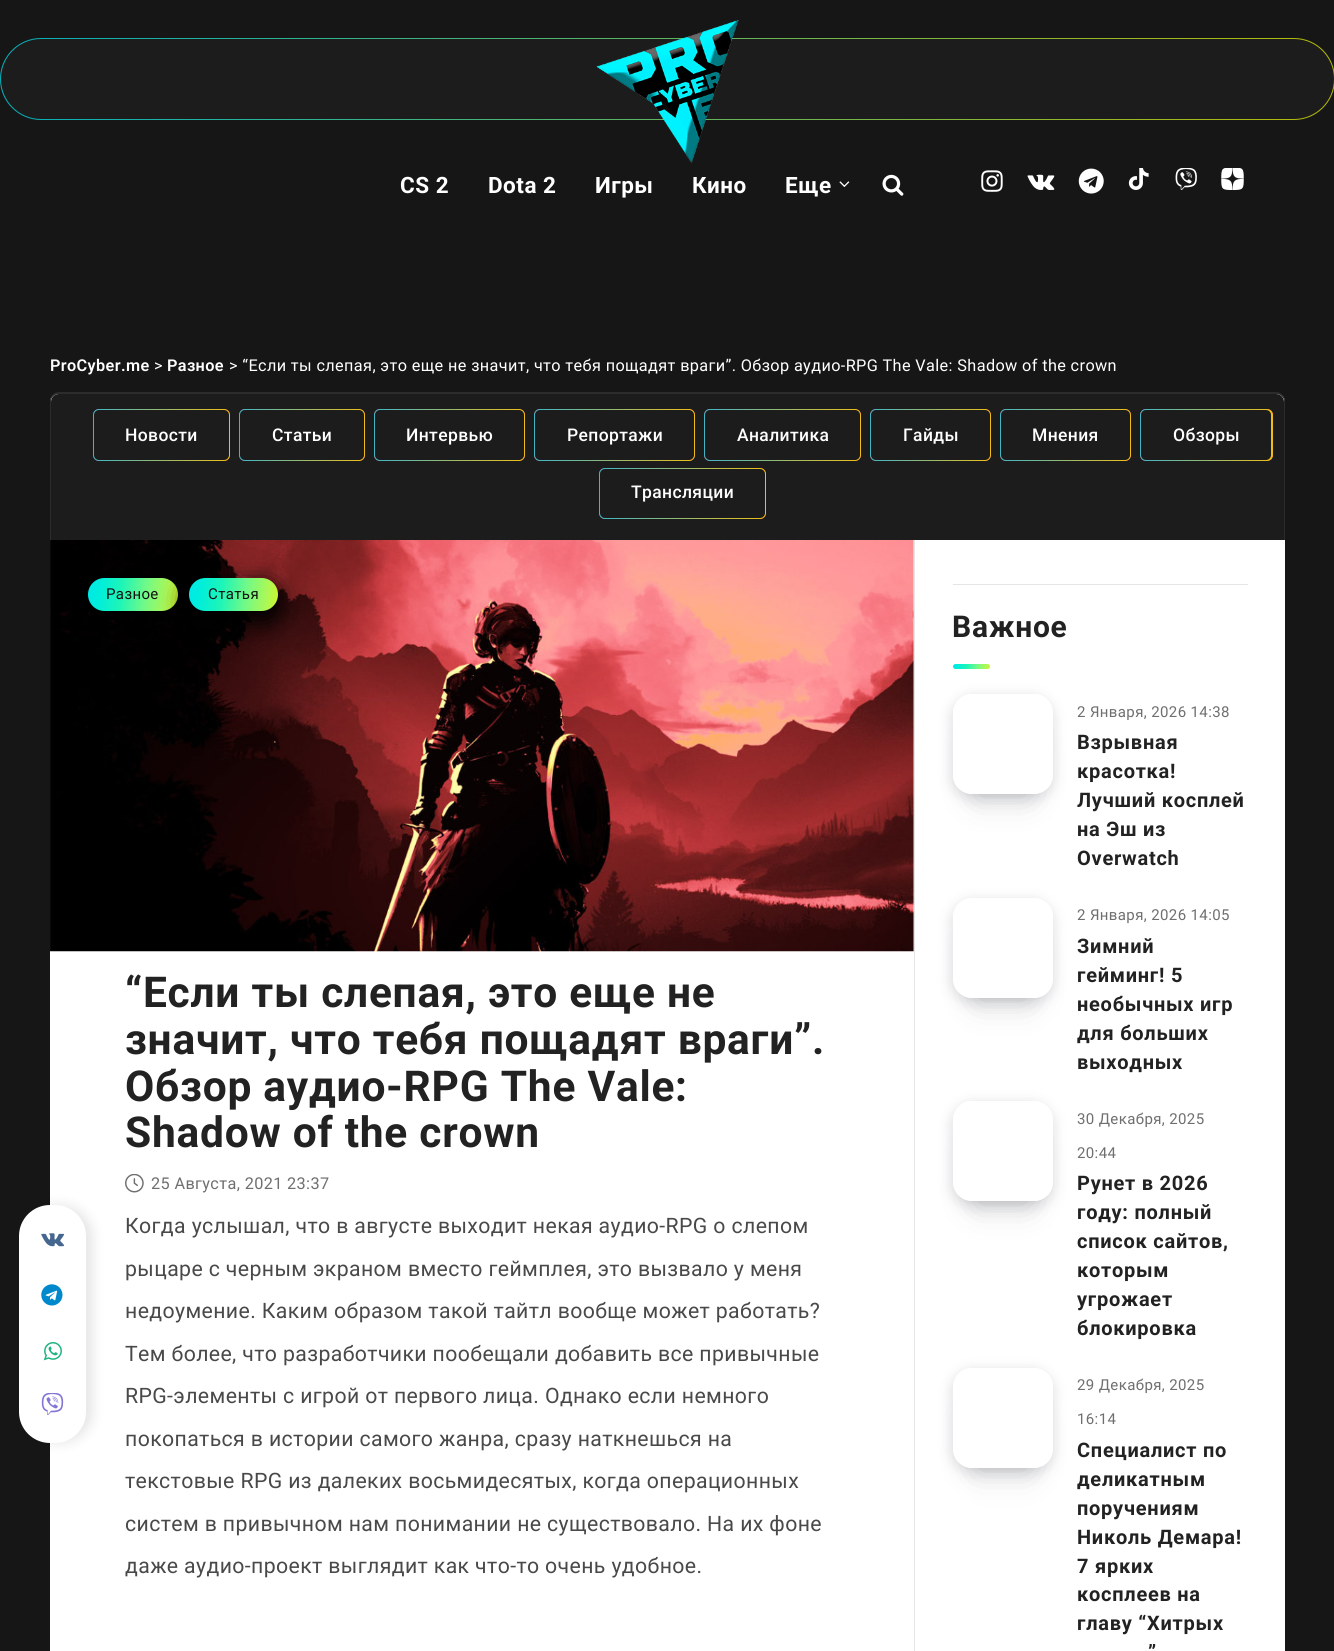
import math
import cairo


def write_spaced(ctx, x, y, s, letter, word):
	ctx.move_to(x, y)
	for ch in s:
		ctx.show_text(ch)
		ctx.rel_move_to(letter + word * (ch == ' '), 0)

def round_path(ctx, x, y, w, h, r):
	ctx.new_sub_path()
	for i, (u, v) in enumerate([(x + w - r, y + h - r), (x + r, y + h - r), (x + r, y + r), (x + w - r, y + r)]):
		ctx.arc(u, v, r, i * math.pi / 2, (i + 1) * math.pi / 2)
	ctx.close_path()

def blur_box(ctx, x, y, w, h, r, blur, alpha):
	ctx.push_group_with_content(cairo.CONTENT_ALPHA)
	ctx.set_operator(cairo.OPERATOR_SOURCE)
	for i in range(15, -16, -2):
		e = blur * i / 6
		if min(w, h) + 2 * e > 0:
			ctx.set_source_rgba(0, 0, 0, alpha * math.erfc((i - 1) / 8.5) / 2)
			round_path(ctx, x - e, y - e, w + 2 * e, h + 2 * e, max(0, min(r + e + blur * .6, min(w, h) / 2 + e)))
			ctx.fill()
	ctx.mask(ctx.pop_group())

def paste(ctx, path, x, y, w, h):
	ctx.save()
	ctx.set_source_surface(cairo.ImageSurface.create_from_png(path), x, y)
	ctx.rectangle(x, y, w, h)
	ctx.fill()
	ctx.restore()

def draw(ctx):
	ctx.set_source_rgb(0.086, 0.086, 0.086)
	ctx.paint()
	ctx.set_source_rgb(0.11, 0.11, 0.11)
	round_path(ctx, 0, 38, 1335, 82, 41)
	ctx.fill()
	gradient = cairo.LinearGradient(0, 79, 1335, 79)
	gradient.add_color_stop_rgba(0.01, 0, 0.894, 0.945, 0.74)
	gradient.add_color_stop_rgba(1, 0.925, 0.945, 0, 0.74)
	ctx.set_source(gradient)
	round_path(ctx, 0, 38, 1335, 82, 41)
	ctx.fill()
	ctx.set_source_rgb(0.11, 0.11, 0.11)
	round_path(ctx, 1, 39, 1333, 80, 40)
	ctx.fill()
	paste(ctx, 'media/1.png', 596, 20, 143, 143)
	ctx.select_font_face('Roboto', cairo.FONT_SLANT_NORMAL, cairo.FONT_WEIGHT_BOLD)
	ctx.set_font_size(22.5)
	ctx.set_source_rgb(1, 1, 1)
	for x, y, s in [
		(400, 193, 'CS 2'),
		(488, 193, 'Dota 2'),
		(595, 193, 'Игры'),
		(692, 193, 'Кино'),
		(785, 193, 'Eще'),
	]:
		write_spaced(ctx, x, y, s, 0.5, 0)
	paste(ctx, 'media/2.png', 839, 181, 11, 6)
	paste(ctx, 'media/3.png', 882, 174, 22, 22)
	paste(ctx, 'media/4.png', 981, 170, 22, 22)
	paste(ctx, 'media/5.png', 1027, 174, 28, 16)
	paste(ctx, 'media/6.png', 1078, 168, 26, 26)
	paste(ctx, 'media/7.png', 1128, 168, 21, 22)
	paste(ctx, 'media/8.png', 1175, 168, 22, 22)
	paste(ctx, 'media/9.png', 1221, 168, 23, 22)
	ctx.select_font_face('Roboto SemiBold')
	ctx.set_font_size(16.25)
	write_spaced(ctx, 50, 371, 'ProCyber.me', 0.38, 0)
	ctx.select_font_face('Roboto')
	write_spaced(ctx, 154, 371, '>', 0.38, 0)
	ctx.select_font_face('Roboto SemiBold')
	write_spaced(ctx, 167, 371, 'Разное', 0.38, 0)
	ctx.select_font_face('Roboto')
	write_spaced(ctx, 229, 371, '> “Если ты слепая, это еще не значит, что тебя пощадят враги”. Обзор аудио-RPG The Vale: Shadow of the crown', 0.38, 0)
	ctx.new_path()
	ctx.move_to(59, 393)
	ctx.line_to(1276, 393)
	ctx.curve_to(1281, 393, 1285, 397, 1285, 402)
	ctx.line_to(1285, 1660)
	ctx.line_to(50, 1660)
	ctx.line_to(50, 402)
	ctx.curve_to(50, 397, 54, 393, 59, 393)
	ctx.close_path()
	ctx.fill()
	ctx.set_source_rgb(0.11, 0.11, 0.11)
	ctx.new_path()
	ctx.move_to(59, 394)
	ctx.line_to(1276, 394)
	ctx.curve_to(1280.5, 394, 1284, 397.5, 1284, 402)
	ctx.line_to(1284, 540)
	ctx.line_to(51, 540)
	ctx.line_to(51, 402)
	ctx.curve_to(51, 397.5, 54.5, 394, 59, 394)
	ctx.close_path()
	ctx.fill()
	ctx.set_source_rgb(0.173, 0.173, 0.173)
	ctx.set_fill_rule(cairo.FILL_RULE_EVEN_ODD)
	ctx.new_path()
	ctx.move_to(59, 392)
	ctx.line_to(1276, 392)
	ctx.curve_to(1281, 392, 1285, 396, 1285, 401)
	ctx.line_to(1285, 540)
	ctx.line_to(50, 540)
	ctx.line_to(50, 401)
	ctx.curve_to(50, 396, 54, 392, 59, 392)
	ctx.close_path()
	ctx.move_to(59, 394)
	ctx.line_to(1276, 394)
	ctx.curve_to(1280, 394, 1284, 397, 1284, 401)
	ctx.line_to(1284, 540)
	ctx.line_to(51, 540)
	ctx.line_to(51, 401)
	ctx.curve_to(51, 397, 55, 394, 59, 394)
	ctx.close_path()
	ctx.fill()
	ctx.set_source_rgb(1, 0.192, 0.322)
	round_path(ctx, 93, 409, 137, 52, 6)
	ctx.fill()
	gradient = cairo.LinearGradient(93, 435, 230, 435)
	gradient.add_color_stop_rgba(0.01, 0, 0.894, 0.945, 0.74)
	gradient.add_color_stop_rgba(1, 0.925, 0.945, 0, 0.74)
	ctx.set_source(gradient)
	round_path(ctx, 93, 409, 137, 52, 6)
	ctx.fill()
	ctx.set_source_rgb(0.11, 0.11, 0.11)
	round_path(ctx, 94, 410, 135, 50, 5)
	ctx.fill()
	ctx.select_font_face('Roboto Medium')
	ctx.set_font_size(17.5)
	ctx.set_source_rgb(1, 1, 1)
	write_spaced(ctx, 125, 441, 'Новости', 0.38, 0)
	ctx.set_source_rgb(1, 0.192, 0.322)
	round_path(ctx, 239, 409, 126, 52, 6)
	ctx.fill()
	gradient = cairo.LinearGradient(239, 435, 365, 435)
	gradient.add_color_stop_rgba(0.01, 0, 0.894, 0.945, 0.74)
	gradient.add_color_stop_rgba(1, 0.925, 0.945, 0, 0.74)
	ctx.set_source(gradient)
	round_path(ctx, 239, 409, 126, 52, 6)
	ctx.fill()
	ctx.set_source_rgb(0.11, 0.11, 0.11)
	round_path(ctx, 240, 410, 124, 50, 5)
	ctx.fill()
	ctx.set_source_rgb(1, 1, 1)
	write_spaced(ctx, 272, 441, 'Статьи', 0.38, 0)
	ctx.set_source_rgb(1, 0.192, 0.322)
	round_path(ctx, 374, 409, 151, 52, 6)
	ctx.fill()
	gradient = cairo.LinearGradient(374, 435, 525, 435)
	gradient.add_color_stop_rgba(0.01, 0, 0.894, 0.945, 0.74)
	gradient.add_color_stop_rgba(1, 0.925, 0.945, 0, 0.74)
	ctx.set_source(gradient)
	round_path(ctx, 374, 409, 151, 52, 6)
	ctx.fill()
	ctx.set_source_rgb(0.11, 0.11, 0.11)
	round_path(ctx, 375, 410, 149, 50, 5)
	ctx.fill()
	ctx.set_source_rgb(1, 1, 1)
	write_spaced(ctx, 406, 441, 'Интервью', 0.38, 0)
	ctx.set_source_rgb(1, 0.192, 0.322)
	round_path(ctx, 534, 409, 161, 52, 6)
	ctx.fill()
	gradient = cairo.LinearGradient(534, 435, 695, 435)
	gradient.add_color_stop_rgba(0.01, 0, 0.894, 0.945, 0.74)
	gradient.add_color_stop_rgba(1, 0.925, 0.945, 0, 0.74)
	ctx.set_source(gradient)
	round_path(ctx, 534, 409, 161, 52, 6)
	ctx.fill()
	ctx.set_source_rgb(0.11, 0.11, 0.11)
	round_path(ctx, 535, 410, 159, 50, 5)
	ctx.fill()
	ctx.set_source_rgb(1, 1, 1)
	write_spaced(ctx, 567, 441, 'Репортажи', 0.38, 0)
	ctx.set_source_rgb(1, 0.192, 0.322)
	round_path(ctx, 704, 409, 157, 52, 6)
	ctx.fill()
	gradient = cairo.LinearGradient(704, 435, 861, 435)
	gradient.add_color_stop_rgba(0.01, 0, 0.894, 0.945, 0.74)
	gradient.add_color_stop_rgba(1, 0.925, 0.945, 0, 0.74)
	ctx.set_source(gradient)
	round_path(ctx, 704, 409, 157, 52, 6)
	ctx.fill()
	ctx.set_source_rgb(0.11, 0.11, 0.11)
	round_path(ctx, 705, 410, 155, 50, 5)
	ctx.fill()
	ctx.set_source_rgb(1, 1, 1)
	write_spaced(ctx, 737, 441, 'Аналитика', 0.38, 0)
	ctx.set_source_rgb(1, 0.192, 0.322)
	round_path(ctx, 870, 409, 121, 52, 6)
	ctx.fill()
	gradient = cairo.LinearGradient(870, 435, 991, 435)
	gradient.add_color_stop_rgba(0.01, 0, 0.894, 0.945, 0.74)
	gradient.add_color_stop_rgba(1, 0.925, 0.945, 0, 0.74)
	ctx.set_source(gradient)
	round_path(ctx, 870, 409, 121, 52, 6)
	ctx.fill()
	ctx.set_source_rgb(0.11, 0.11, 0.11)
	round_path(ctx, 871, 410, 119, 50, 5)
	ctx.fill()
	ctx.set_source_rgb(1, 1, 1)
	write_spaced(ctx, 903, 441, 'Гайды', 0.38, 0)
	ctx.set_source_rgb(1, 0.192, 0.322)
	round_path(ctx, 1000, 409, 131, 52, 6)
	ctx.fill()
	gradient = cairo.LinearGradient(1000, 435, 1131, 435)
	gradient.add_color_stop_rgba(0.01, 0, 0.894, 0.945, 0.74)
	gradient.add_color_stop_rgba(1, 0.925, 0.945, 0, 0.74)
	ctx.set_source(gradient)
	round_path(ctx, 1000, 409, 131, 52, 6)
	ctx.fill()
	ctx.set_source_rgb(0.11, 0.11, 0.11)
	round_path(ctx, 1001, 410, 129, 50, 5)
	ctx.fill()
	ctx.set_source_rgb(1, 1, 1)
	write_spaced(ctx, 1032, 441, 'Мнения', 0.38, 0)
	ctx.set_source_rgb(1, 0.192, 0.322)
	round_path(ctx, 1140, 409, 133, 52, 6)
	ctx.fill()
	gradient = cairo.LinearGradient(1140, 435, 1273, 435)
	gradient.add_color_stop_rgba(0.01, 0, 0.894, 0.945, 0.74)
	gradient.add_color_stop_rgba(1, 0.925, 0.945, 0, 0.74)
	ctx.set_source(gradient)
	round_path(ctx, 1140, 409, 133, 52, 6)
	ctx.fill()
	ctx.set_source_rgb(0.11, 0.11, 0.11)
	round_path(ctx, 1141, 410, 130, 50, 5)
	ctx.fill()
	ctx.set_source_rgb(1, 1, 1)
	write_spaced(ctx, 1173, 441, 'Обзоры', 0.38, 0)
	ctx.set_source_rgb(1, 0.192, 0.322)
	round_path(ctx, 599, 468, 167, 51, 6)
	ctx.fill()
	gradient = cairo.LinearGradient(599, 493, 766, 493)
	gradient.add_color_stop_rgba(0.01, 0, 0.894, 0.945, 0.74)
	gradient.add_color_stop_rgba(1, 0.925, 0.945, 0, 0.74)
	ctx.set_source(gradient)
	round_path(ctx, 599, 468, 167, 51, 6)
	ctx.fill()
	ctx.set_source_rgb(0.11, 0.11, 0.11)
	round_path(ctx, 600, 469, 165, 49, 5)
	ctx.fill()
	ctx.set_source_rgb(1, 1, 1)
	write_spaced(ctx, 631, 498, 'Трансляции', 0.38, 0)
	ctx.set_source_rgb(0.898, 0.898, 0.898)
	ctx.rectangle(914, 540, 1, 1111)
	ctx.fill()
	paste(ctx, 'media/10.png', 50, 540, 864, 412)
	gradient = cairo.LinearGradient(77, 588, 190, 601)
	gradient.add_color_stop_rgba(0, 0, 0.894, 0.945, 1)
	gradient.add_color_stop_rgba(0.2, 0, 0.933, 0.859, 1)
	gradient.add_color_stop_rgba(0.39, 0.118, 0.961, 0.718, 1)
	gradient.add_color_stop_rgba(0.6, 0.439, 0.976, 0.537, 1)
	gradient.add_color_stop_rgba(0.8, 0.682, 0.973, 0.329, 1)
	gradient.add_color_stop_rgba(1, 0.925, 0.945, 0, 1)
	ctx.set_source(gradient)
	round_path(ctx, 88, 578, 90, 33, 16.5)
	ctx.fill()
	ctx.select_font_face('Roboto')
	ctx.set_font_size(15)
	ctx.set_source_rgb(0.067, 0.067, 0.067)
	write_spaced(ctx, 106, 599, 'Разное', 0.38, 0)
	ctx.set_source_rgb(0, 0, 0)
	blur_box(ctx, 189, 585, 89, 34, 17, 12.5, 1)
	blur_box(ctx, 189, 590, 89, 34, 17, 10, 0.4)
	gradient = cairo.LinearGradient(178, 588, 290, 601)
	gradient.add_color_stop_rgba(0, 0, 0.894, 0.945, 1)
	gradient.add_color_stop_rgba(0.2, 0, 0.933, 0.859, 1)
	gradient.add_color_stop_rgba(0.39, 0.118, 0.961, 0.718, 1)
	gradient.add_color_stop_rgba(0.6, 0.439, 0.976, 0.537, 1)
	gradient.add_color_stop_rgba(0.8, 0.682, 0.973, 0.329, 1)
	gradient.add_color_stop_rgba(1, 0.925, 0.945, 0, 1)
	ctx.set_source(gradient)
	round_path(ctx, 189, 578, 89, 33, 16.5)
	ctx.fill()
	ctx.set_source_rgb(0.067, 0.067, 0.067)
	write_spaced(ctx, 208, 599, 'Статья', 0.38, 0)
	ctx.select_font_face('Roboto', cairo.FONT_SLANT_NORMAL, cairo.FONT_WEIGHT_BOLD)
	ctx.set_font_size(42.5)
	ctx.set_source_rgb(0.133, 0.133, 0.133)
	for x, y, s in [
		(125, 1007, '“Если ты слепая, это еще не'),
		(125, 1054, 'значит, что тебя пощадят враги”.'),
		(125, 1101, 'Обзор аудио-RPG The Vale:'),
		(125, 1147, 'Shadow of the crown'),
	]:
		write_spaced(ctx, x, y, s, 0.75, 0)
	paste(ctx, 'media/11.png', 125, 1174, 19, 19)
	ctx.select_font_face('Roboto')
	ctx.set_font_size(16.25)
	ctx.set_source_rgb(0.435, 0.435, 0.435)
	write_spaced(ctx, 151, 1189, '25 Августа, 2021 23:37', 0.38, 0)
	ctx.set_source_rgb(0, 0, 0)
	blur_box(ctx, 25, 1205, 68, 238, 31, 6, 0.1)
	ctx.set_source_rgb(1, 1, 1)
	round_path(ctx, 19, 1205, 67, 238, 31)
	ctx.fill()
	paste(ctx, 'media/12.png', 41, 1233, 23, 14)
	paste(ctx, 'media/13.png', 41, 1284, 22, 22)
	paste(ctx, 'media/14.png', 43, 1342, 19, 19)
	paste(ctx, 'media/15.png', 41, 1393, 23, 22)
	ctx.set_font_size(21.25)
	ctx.set_source_rgb(0.286, 0.286, 0.286)
	for x, y, s in [
		(125, 1233, 'Когда услышал, что в августе выходит некая аудио-RPG о слепом'),
		(125, 1276, 'рыцаре с черным экраном вместо геймплея, это вызвало у меня'),
		(125, 1318, 'недоумение. Каким образом такой тайтл вообще может работать?'),
		(125, 1361, 'Тем более, что разработчики пообещали добавить все привычные'),
		(125, 1403, 'RPG-элементы с игрой от первого лица. Однако если немного'),
		(125, 1446, 'покопаться в истории самого жанра, сразу наткнешься на'),
		(125, 1488, 'текстовые RPG из далеких восьмидесятых, когда операционных'),
		(125, 1531, 'систем в привычном нам понимании не существовало. На их фоне'),
		(125, 1573, 'даже аудио-проект выглядит как что-то очень удобное.'),
	]:
		write_spaced(ctx, x, y, s, 0.38, 0)
	ctx.set_source_rgb(0.898, 0.898, 0.898)
	ctx.rectangle(953, 584, 295, 1)
	ctx.fill()
	ctx.select_font_face('Roboto', cairo.FONT_SLANT_NORMAL, cairo.FONT_WEIGHT_BOLD)
	ctx.set_font_size(30)
	ctx.set_source_rgb(0.133, 0.133, 0.133)
	write_spaced(ctx, 952, 637, 'Важное', 0.75, 0)
	gradient = cairo.LinearGradient(949, 663, 995, 669)
	gradient.add_color_stop_rgba(0, 0, 0.894, 0.945, 1)
	gradient.add_color_stop_rgba(0.2, 0, 0.933, 0.859, 1)
	gradient.add_color_stop_rgba(0.39, 0.118, 0.961, 0.718, 1)
	gradient.add_color_stop_rgba(0.6, 0.439, 0.976, 0.537, 1)
	gradient.add_color_stop_rgba(0.8, 0.682, 0.973, 0.329, 1)
	gradient.add_color_stop_rgba(1, 0.925, 0.945, 0, 1)
	ctx.set_source(gradient)
	round_path(ctx, 953, 664, 37, 5, 2.5)
	ctx.fill()
	ctx.save()
	ctx.new_path()
	ctx.move_to(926, 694)
	ctx.line_to(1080, 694)
	ctx.line_to(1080, 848)
	ctx.line_to(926, 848)
	ctx.close_path()
	ctx.move_to(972, 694)
	ctx.line_to(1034, 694)
	ctx.curve_to(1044.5, 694, 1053, 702.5, 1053, 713)
	ctx.line_to(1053, 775)
	ctx.curve_to(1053, 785.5, 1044.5, 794, 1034, 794)
	ctx.line_to(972, 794)
	ctx.curve_to(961.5, 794, 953, 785.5, 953, 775)
	ctx.line_to(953, 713)
	ctx.curve_to(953, 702.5, 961.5, 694, 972, 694)
	ctx.close_path()
	ctx.clip()
	ctx.set_source_rgb(0.027, 0.039, 0.098)
	blur_box(ctx, 978, 746, 50, 50, 0, 17, 0.2)
	ctx.restore()
	ctx.save()
	ctx.new_path()
	ctx.move_to(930, 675)
	ctx.line_to(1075, 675)
	ctx.line_to(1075, 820)
	ctx.line_to(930, 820)
	ctx.close_path()
	ctx.move_to(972, 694)
	ctx.line_to(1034, 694)
	ctx.curve_to(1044.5, 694, 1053, 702.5, 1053, 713)
	ctx.line_to(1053, 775)
	ctx.curve_to(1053, 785.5, 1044.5, 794, 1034, 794)
	ctx.line_to(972, 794)
	ctx.curve_to(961.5, 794, 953, 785.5, 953, 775)
	ctx.line_to(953, 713)
	ctx.curve_to(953, 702.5, 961.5, 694, 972, 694)
	ctx.close_path()
	ctx.clip()
	ctx.set_source_rgb(0.027, 0.039, 0.098)
	blur_box(ctx, 954, 699, 97, 97, 18, 7.5, 0.2)
	ctx.restore()
	ctx.select_font_face('Roboto')
	ctx.set_font_size(15)
	ctx.set_source_rgb(0.435, 0.435, 0.435)
	write_spaced(ctx, 1077, 717, '2 Января, 2026 14:38', 0.38, 0)
	ctx.select_font_face('Roboto', cairo.FONT_SLANT_NORMAL, cairo.FONT_WEIGHT_BOLD)
	ctx.set_font_size(20)
	ctx.set_source_rgb(0.133, 0.133, 0.133)
	for x, y, s in [
		(1077, 749, 'Взрывная'),
		(1077, 778, 'красотка!'),
		(1077, 807, 'Лучший косплей'),
		(1077, 836, 'на Эш из'),
		(1077, 865, 'Overwatch'),
	]:
		write_spaced(ctx, x, y, s, 0.75, 0)
	ctx.save()
	ctx.new_path()
	ctx.move_to(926, 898)
	ctx.line_to(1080, 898)
	ctx.line_to(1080, 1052)
	ctx.line_to(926, 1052)
	ctx.close_path()
	ctx.move_to(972, 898)
	ctx.line_to(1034, 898)
	ctx.curve_to(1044.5, 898, 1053, 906.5, 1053, 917)
	ctx.line_to(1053, 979)
	ctx.curve_to(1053, 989.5, 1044.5, 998, 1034, 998)
	ctx.line_to(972, 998)
	ctx.curve_to(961.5, 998, 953, 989.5, 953, 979)
	ctx.line_to(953, 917)
	ctx.curve_to(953, 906.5, 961.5, 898, 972, 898)
	ctx.close_path()
	ctx.clip()
	ctx.set_source_rgb(0.027, 0.039, 0.098)
	blur_box(ctx, 978, 950, 50, 50, 0, 17, 0.2)
	ctx.restore()
	ctx.save()
	ctx.new_path()
	ctx.move_to(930, 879)
	ctx.line_to(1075, 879)
	ctx.line_to(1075, 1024)
	ctx.line_to(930, 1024)
	ctx.close_path()
	ctx.move_to(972, 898)
	ctx.line_to(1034, 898)
	ctx.curve_to(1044.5, 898, 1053, 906.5, 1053, 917)
	ctx.line_to(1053, 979)
	ctx.curve_to(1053, 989.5, 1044.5, 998, 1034, 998)
	ctx.line_to(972, 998)
	ctx.curve_to(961.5, 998, 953, 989.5, 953, 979)
	ctx.line_to(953, 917)
	ctx.curve_to(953, 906.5, 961.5, 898, 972, 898)
	ctx.close_path()
	ctx.clip()
	ctx.set_source_rgb(0.027, 0.039, 0.098)
	blur_box(ctx, 954, 903, 97, 97, 18, 7.5, 0.2)
	ctx.restore()
	ctx.select_font_face('Roboto')
	ctx.set_font_size(15)
	ctx.set_source_rgb(0.435, 0.435, 0.435)
	write_spaced(ctx, 1077, 920, '2 Января, 2026 14:05', 0.38, 0)
	ctx.select_font_face('Roboto', cairo.FONT_SLANT_NORMAL, cairo.FONT_WEIGHT_BOLD)
	ctx.set_font_size(20)
	ctx.set_source_rgb(0.133, 0.133, 0.133)
	for x, y, s in [
		(1077, 953, 'Зимний'),
		(1077, 982, 'гейминг! 5'),
		(1077, 1011, 'необычных игр'),
		(1077, 1040, 'для больших'),
		(1077, 1069, 'выходных'),
	]:
		write_spaced(ctx, x, y, s, 0.75, 0)
	ctx.save()
	ctx.new_path()
	ctx.move_to(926, 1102)
	ctx.line_to(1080, 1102)
	ctx.line_to(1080, 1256)
	ctx.line_to(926, 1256)
	ctx.close_path()
	ctx.move_to(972, 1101)
	ctx.line_to(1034, 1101)
	ctx.curve_to(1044.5, 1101, 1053, 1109.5, 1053, 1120)
	ctx.line_to(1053, 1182)
	ctx.curve_to(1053, 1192.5, 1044.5, 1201, 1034, 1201)
	ctx.line_to(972, 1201)
	ctx.curve_to(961.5, 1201, 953, 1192.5, 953, 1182)
	ctx.line_to(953, 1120)
	ctx.curve_to(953, 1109.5, 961.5, 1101, 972, 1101)
	ctx.close_path()
	ctx.clip()
	ctx.set_source_rgb(0.027, 0.039, 0.098)
	blur_box(ctx, 978, 1154, 50, 50, 0, 17, 0.2)
	ctx.restore()
	ctx.save()
	ctx.new_path()
	ctx.move_to(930, 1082)
	ctx.line_to(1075, 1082)
	ctx.line_to(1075, 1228)
	ctx.line_to(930, 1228)
	ctx.close_path()
	ctx.move_to(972, 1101)
	ctx.line_to(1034, 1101)
	ctx.curve_to(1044.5, 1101, 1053, 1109.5, 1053, 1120)
	ctx.line_to(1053, 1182)
	ctx.curve_to(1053, 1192.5, 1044.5, 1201, 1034, 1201)
	ctx.line_to(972, 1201)
	ctx.curve_to(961.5, 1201, 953, 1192.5, 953, 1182)
	ctx.line_to(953, 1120)
	ctx.curve_to(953, 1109.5, 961.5, 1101, 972, 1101)
	ctx.close_path()
	ctx.clip()
	ctx.set_source_rgb(0.027, 0.039, 0.098)
	blur_box(ctx, 954, 1106, 97, 98, 18, 7.5, 0.2)
	ctx.restore()
	ctx.select_font_face('Roboto')
	ctx.set_font_size(15)
	ctx.set_source_rgb(0.435, 0.435, 0.435)
	write_spaced(ctx, 1077, 1124, '30 Декабря, 2025', 0.38, 0)
	write_spaced(ctx, 1077, 1158, '20:44', 0.38, 0)
	ctx.select_font_face('Roboto', cairo.FONT_SLANT_NORMAL, cairo.FONT_WEIGHT_BOLD)
	ctx.set_font_size(20)
	ctx.set_source_rgb(0.133, 0.133, 0.133)
	for x, y, s in [
		(1077, 1190, 'Рунет в 2026'),
		(1077, 1219, 'году: полный'),
		(1077, 1248, 'список сайтов,'),
		(1077, 1277, 'которым'),
		(1077, 1306, 'угрожает'),
		(1077, 1335, 'блокировка'),
	]:
		write_spaced(ctx, x, y, s, 0.75, 0)
	ctx.save()
	ctx.new_path()
	ctx.move_to(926, 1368)
	ctx.line_to(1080, 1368)
	ctx.line_to(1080, 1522)
	ctx.line_to(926, 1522)
	ctx.close_path()
	ctx.move_to(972, 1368)
	ctx.line_to(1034, 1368)
	ctx.curve_to(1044.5, 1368, 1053, 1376.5, 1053, 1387)
	ctx.line_to(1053, 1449)
	ctx.curve_to(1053, 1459.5, 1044.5, 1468, 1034, 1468)
	ctx.line_to(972, 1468)
	ctx.curve_to(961.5, 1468, 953, 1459.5, 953, 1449)
	ctx.line_to(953, 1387)
	ctx.curve_to(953, 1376.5, 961.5, 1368, 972, 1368)
	ctx.close_path()
	ctx.clip()
	ctx.set_source_rgb(0.027, 0.039, 0.098)
	blur_box(ctx, 978, 1420, 50, 50, 0, 17, 0.2)
	ctx.restore()
	ctx.save()
	ctx.new_path()
	ctx.move_to(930, 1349)
	ctx.line_to(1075, 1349)
	ctx.line_to(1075, 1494)
	ctx.line_to(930, 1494)
	ctx.close_path()
	ctx.move_to(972, 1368)
	ctx.line_to(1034, 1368)
	ctx.curve_to(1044.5, 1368, 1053, 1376.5, 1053, 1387)
	ctx.line_to(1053, 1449)
	ctx.curve_to(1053, 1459.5, 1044.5, 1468, 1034, 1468)
	ctx.line_to(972, 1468)
	ctx.curve_to(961.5, 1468, 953, 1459.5, 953, 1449)
	ctx.line_to(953, 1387)
	ctx.curve_to(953, 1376.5, 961.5, 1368, 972, 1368)
	ctx.close_path()
	ctx.clip()
	ctx.set_source_rgb(0.027, 0.039, 0.098)
	blur_box(ctx, 954, 1373, 97, 97, 18, 7.5, 0.2)
	ctx.restore()
	ctx.select_font_face('Roboto')
	ctx.set_font_size(15)
	ctx.set_source_rgb(0.435, 0.435, 0.435)
	write_spaced(ctx, 1077, 1390, '29 Декабря, 2025', 0.38, 0)
	write_spaced(ctx, 1077, 1424, '16:14', 0.38, 0)
	ctx.select_font_face('Roboto', cairo.FONT_SLANT_NORMAL, cairo.FONT_WEIGHT_BOLD)
	ctx.set_font_size(20)
	ctx.set_source_rgb(0.133, 0.133, 0.133)
	for x, y, s in [
		(1077, 1457, 'Специалист по'),
		(1077, 1486, 'деликатным'),
		(1077, 1515, 'поручениям'),
		(1077, 1544, 'Николь Демара!'),
		(1077, 1573, '7 ярких'),
		(1077, 1601, 'косплеев на'),
		(1077, 1630, 'главу “Хитрых'),
		(1148, 1659, '”'),
	]:
		write_spaced(ctx, x, y, s, 0.75, 0)


surface = cairo.ImageSurface(cairo.FORMAT_RGB24, 1334, 1651)
ctx = cairo.Context(surface)
options = cairo.FontOptions()
options.set_hint_metrics(cairo.HINT_METRICS_OFF)
options.set_hint_style(cairo.HINT_STYLE_NONE)
ctx.set_font_options(options)
ctx.set_miter_limit(4)
draw(ctx)
surface.write_to_png('image.png')
